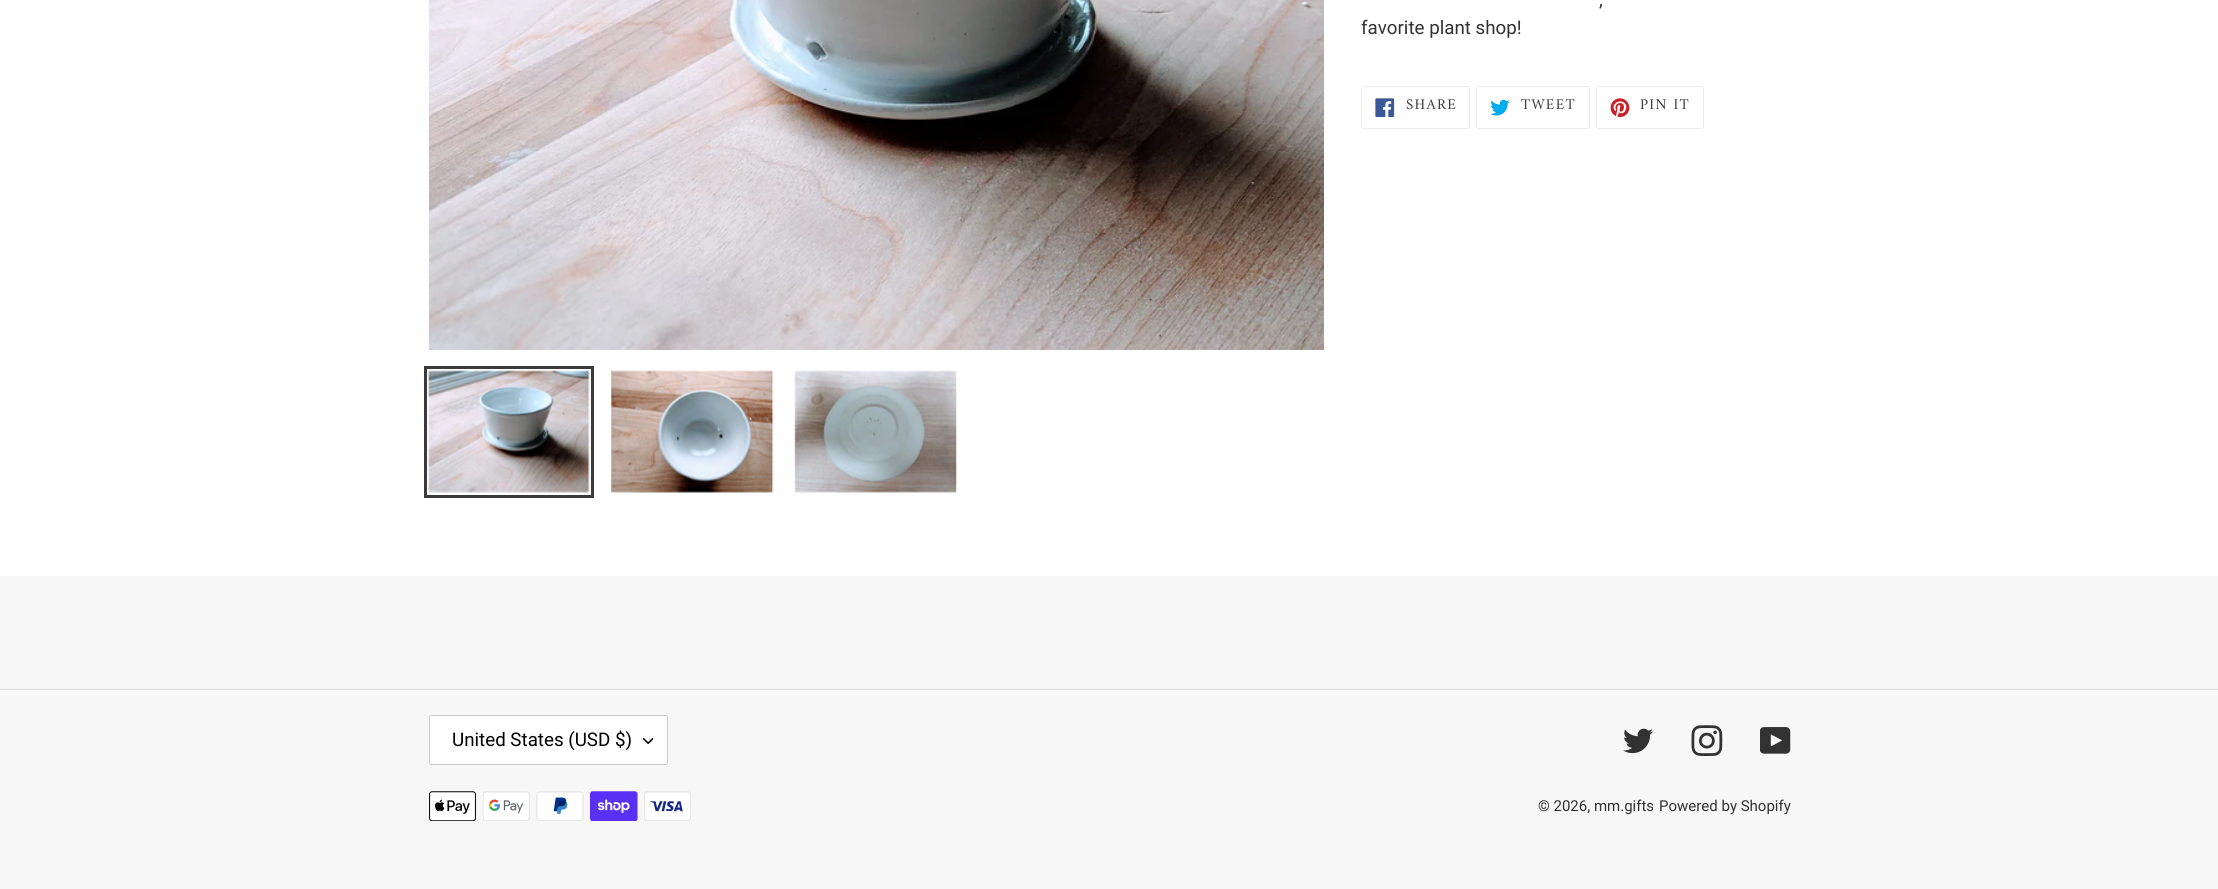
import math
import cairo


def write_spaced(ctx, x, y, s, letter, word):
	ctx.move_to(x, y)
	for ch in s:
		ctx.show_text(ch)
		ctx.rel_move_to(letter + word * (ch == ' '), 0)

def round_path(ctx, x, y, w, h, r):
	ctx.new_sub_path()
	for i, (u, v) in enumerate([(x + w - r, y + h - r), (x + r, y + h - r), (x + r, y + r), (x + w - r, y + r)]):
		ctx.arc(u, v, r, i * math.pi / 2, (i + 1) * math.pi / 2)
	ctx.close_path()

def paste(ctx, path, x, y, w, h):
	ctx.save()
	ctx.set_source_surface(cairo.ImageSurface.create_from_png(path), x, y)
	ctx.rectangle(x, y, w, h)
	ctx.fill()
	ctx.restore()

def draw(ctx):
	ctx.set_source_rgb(1, 1, 1)
	ctx.paint()
	paste(ctx, 'media/1.png', 429, 0, 895, 350)
	ctx.rectangle(425.5, 367.5, 167, 129)
	ctx.set_source_rgb(0.227, 0.227, 0.227)
	ctx.set_line_width(3)
	ctx.stroke()
	paste(ctx, 'media/2.png', 428, 370, 162, 123)
	paste(ctx, 'media/3.png', 611, 370, 163, 123)
	paste(ctx, 'media/4.png', 794, 370, 163, 123)
	ctx.select_font_face('Roboto')
	ctx.set_font_size(18.75)
	ctx.set_source_rgb(0.2, 0.196, 0.196)
	ctx.move_to(1599, 6)
	ctx.show_text(',')
	ctx.move_to(1361, 34)
	ctx.show_text('favorite plant shop!')
	round_path(ctx, 1361.5, 86.5, 108, 42, 2)
	ctx.set_source_rgb(0.922, 0.922, 0.922)
	ctx.set_line_width(1)
	ctx.stroke()
	paste(ctx, 'media/5.png', 1375, 98, 20, 20)
	ctx.select_font_face('Amiri')
	ctx.set_font_size(15)
	ctx.set_source_rgb(0.227, 0.227, 0.227)
	write_spaced(ctx, 1406, 109, 'SHARE', 1.25, 0)
	round_path(ctx, 1476.5, 86.5, 113, 42, 2)
	ctx.set_source_rgb(0.922, 0.922, 0.922)
	ctx.stroke()
	paste(ctx, 'media/6.png', 1490, 99, 20, 17)
	ctx.set_source_rgb(0.227, 0.227, 0.227)
	write_spaced(ctx, 1521, 109, 'TWEET', 1.25, 0)
	round_path(ctx, 1596.5, 86.5, 107, 42, 2)
	ctx.set_source_rgb(0.922, 0.922, 0.922)
	ctx.stroke()
	paste(ctx, 'media/7.png', 1610, 98, 20, 19)
	ctx.set_source_rgb(0.227, 0.227, 0.227)
	write_spaced(ctx, 1640, 109, 'PIN IT', 1.25, 0)
	ctx.set_source_rgb(0.965, 0.965, 0.965)
	ctx.rectangle(0, 576, 2218, 313)
	ctx.fill()
	ctx.set_source_rgb(0.867, 0.867, 0.867)
	ctx.rectangle(0, 689, 2218, 1)
	ctx.fill()
	ctx.set_source_rgb(1, 1, 1)
	round_path(ctx, 429, 715, 239, 50, 2.5)
	ctx.fill()
	paste(ctx, 'media/8.png', 643, 738, 11, 6)
	round_path(ctx, 429.5, 715.5, 238, 49, 2)
	ctx.set_source_rgb(0.8, 0.8, 0.8)
	ctx.stroke()
	ctx.select_font_face('Roboto')
	ctx.set_font_size(18.75)
	ctx.set_source_rgb(0, 0, 0)
	ctx.move_to(452, 746)
	ctx.show_text('United States (USD $)')
	paste(ctx, 'media/9.png', 1623, 728, 30, 26)
	paste(ctx, 'media/10.png', 1691, 725, 32, 31)
	paste(ctx, 'media/11.png', 1760, 727, 31, 27)
	paste(ctx, 'media/12.png', 429, 791, 47, 30)
	paste(ctx, 'media/13.png', 483, 791, 47, 30)
	paste(ctx, 'media/14.png', 536, 791, 48, 30)
	paste(ctx, 'media/15.png', 590, 791, 48, 30)
	paste(ctx, 'media/16.png', 644, 791, 47, 30)
	ctx.set_font_size(15)
	ctx.set_source_rgb(0.2, 0.196, 0.196)
	ctx.move_to(1538, 811)
	ctx.show_text('© 2026, mm.gifts')
	ctx.move_to(1659, 811)
	ctx.show_text('Powered by Shopify')


surface = cairo.ImageSurface(cairo.FORMAT_RGB24, 2218, 889)
ctx = cairo.Context(surface)
options = cairo.FontOptions()
options.set_hint_metrics(cairo.HINT_METRICS_OFF)
options.set_hint_style(cairo.HINT_STYLE_NONE)
ctx.set_font_options(options)
ctx.set_miter_limit(4)
draw(ctx)
surface.write_to_png('image.png')
